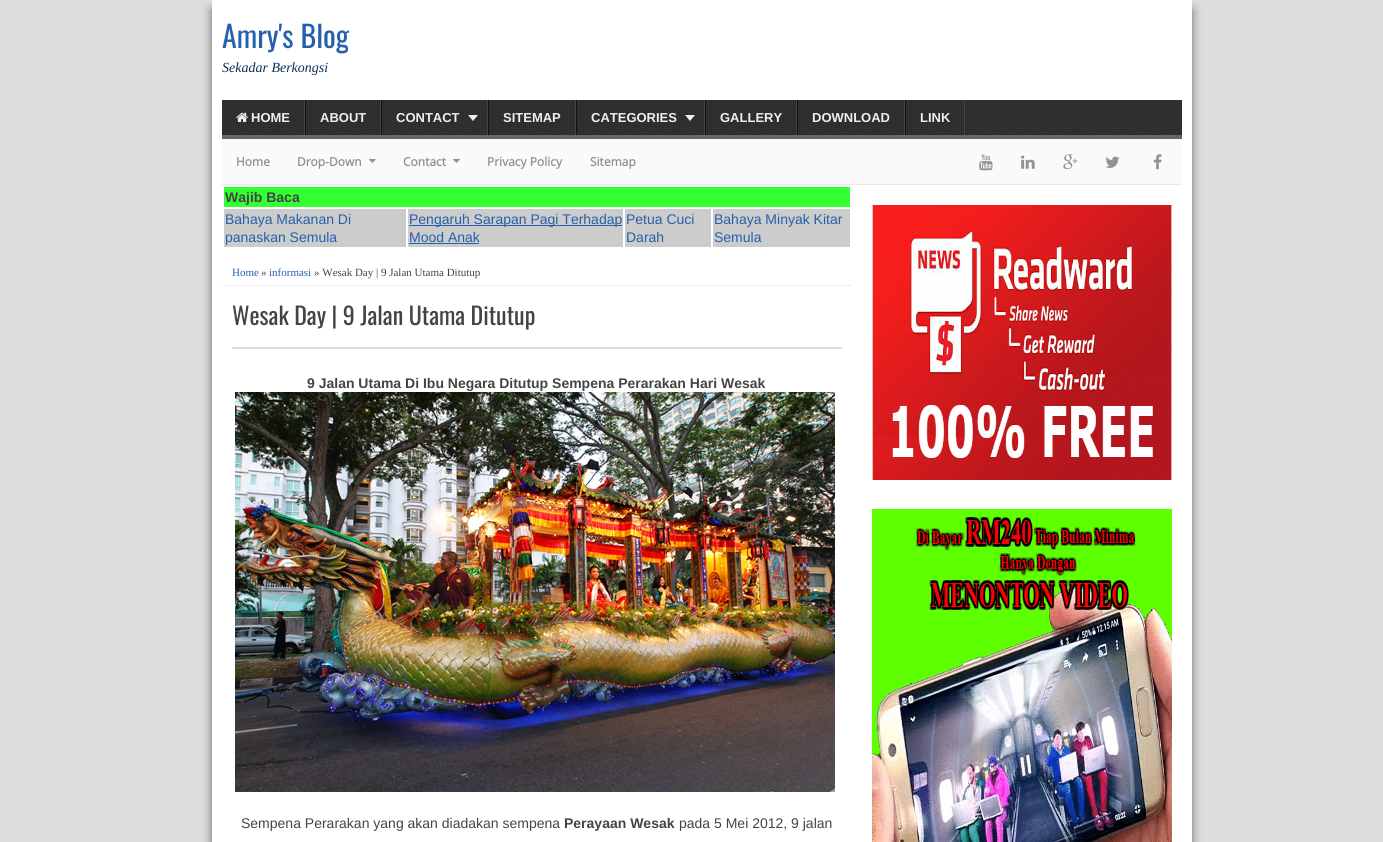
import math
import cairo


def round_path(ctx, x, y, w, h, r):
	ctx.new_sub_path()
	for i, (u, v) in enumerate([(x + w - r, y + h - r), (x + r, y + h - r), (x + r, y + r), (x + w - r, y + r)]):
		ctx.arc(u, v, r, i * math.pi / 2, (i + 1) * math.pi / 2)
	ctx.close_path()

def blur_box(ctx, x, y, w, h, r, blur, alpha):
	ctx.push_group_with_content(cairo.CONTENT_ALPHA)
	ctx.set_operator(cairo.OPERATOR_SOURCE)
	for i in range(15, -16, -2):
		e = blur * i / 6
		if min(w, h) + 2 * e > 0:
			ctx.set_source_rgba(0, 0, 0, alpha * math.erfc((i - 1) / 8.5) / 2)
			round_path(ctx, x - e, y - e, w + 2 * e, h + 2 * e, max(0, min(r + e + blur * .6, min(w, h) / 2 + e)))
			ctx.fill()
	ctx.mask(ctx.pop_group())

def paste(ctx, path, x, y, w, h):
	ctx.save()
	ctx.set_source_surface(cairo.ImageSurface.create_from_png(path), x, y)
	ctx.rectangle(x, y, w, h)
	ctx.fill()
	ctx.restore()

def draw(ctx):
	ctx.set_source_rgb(0.867, 0.867, 0.867)
	ctx.paint()
	ctx.set_source_rgb(0.4, 0.4, 0.4)
	blur_box(ctx, 212, 10, 980, 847, 0, 5, 1)
	ctx.set_source_rgb(1, 1, 1)
	ctx.rectangle(212, 0, 980, 842)
	ctx.fill()
	ctx.select_font_face('Oswald')
	ctx.set_font_size(30)
	ctx.set_source_rgb(0.145, 0.376, 0.667)
	ctx.move_to(222, 48)
	ctx.show_text('Amry\'s Blog')
	ctx.select_font_face('Liberation Serif', cairo.FONT_SLANT_ITALIC)
	ctx.set_font_size(14)
	ctx.set_source_rgb(0.039, 0.18, 0.337)
	ctx.move_to(222, 72)
	ctx.show_text('Sekadar Berkongsi')
	paste(ctx, 'media/1.png', 222, 100, 960, 35)
	ctx.set_source_rgb(0.4, 0.4, 0.4)
	ctx.rectangle(222, 135, 960, 4)
	ctx.fill()
	ctx.set_source_rgb(0.267, 0.267, 0.267)
	ctx.rectangle(304, 100, 1, 35)
	ctx.fill()
	paste(ctx, 'media/2.png', 236, 112, 12, 10)
	ctx.select_font_face('Liberation Sans', cairo.FONT_SLANT_NORMAL, cairo.FONT_WEIGHT_BOLD)
	ctx.set_font_size(13)
	ctx.set_source_rgb(0.933, 0.933, 0.933)
	ctx.move_to(251, 122)
	ctx.show_text('HOME')
	ctx.set_source_rgb(0.267, 0.267, 0.267)
	ctx.rectangle(380, 100, 1, 35)
	ctx.fill()
	ctx.set_source_rgb(0.067, 0.067, 0.067)
	ctx.rectangle(305, 100, 1, 35)
	ctx.fill()
	ctx.set_source_rgb(0.933, 0.933, 0.933)
	ctx.move_to(320, 122)
	ctx.show_text('ABOUT')
	ctx.set_source_rgb(0.267, 0.267, 0.267)
	ctx.rectangle(487, 100, 1, 35)
	ctx.fill()
	ctx.set_source_rgb(0.067, 0.067, 0.067)
	ctx.rectangle(381, 100, 1, 35)
	ctx.fill()
	ctx.set_source_rgb(0.933, 0.933, 0.933)
	ctx.move_to(396, 122)
	ctx.show_text('CONTACT')
	ctx.new_path()
	ctx.move_to(468, 115)
	ctx.line_to(478, 115)
	ctx.line_to(473, 121)
	ctx.close_path()
	ctx.fill()
	ctx.set_source_rgb(0.267, 0.267, 0.267)
	ctx.rectangle(575, 100, 1, 35)
	ctx.fill()
	ctx.set_source_rgb(0.067, 0.067, 0.067)
	ctx.rectangle(488, 100, 1, 35)
	ctx.fill()
	ctx.set_source_rgb(0.933, 0.933, 0.933)
	ctx.move_to(503, 122)
	ctx.show_text('SITEMAP')
	ctx.set_source_rgb(0.267, 0.267, 0.267)
	ctx.rectangle(704, 100, 1, 35)
	ctx.fill()
	ctx.set_source_rgb(0.067, 0.067, 0.067)
	ctx.rectangle(576, 100, 1, 35)
	ctx.fill()
	ctx.set_source_rgb(0.933, 0.933, 0.933)
	ctx.move_to(591, 122)
	ctx.show_text('CATEGORIES')
	ctx.new_path()
	ctx.move_to(685, 115)
	ctx.line_to(695, 115)
	ctx.line_to(690, 121)
	ctx.close_path()
	ctx.fill()
	ctx.set_source_rgb(0.267, 0.267, 0.267)
	ctx.rectangle(796, 100, 1, 35)
	ctx.fill()
	ctx.set_source_rgb(0.067, 0.067, 0.067)
	ctx.rectangle(705, 100, 1, 35)
	ctx.fill()
	ctx.set_source_rgb(0.933, 0.933, 0.933)
	ctx.move_to(720, 122)
	ctx.show_text('GALLERY')
	ctx.set_source_rgb(0.267, 0.267, 0.267)
	ctx.rectangle(904, 100, 1, 35)
	ctx.fill()
	ctx.set_source_rgb(0.067, 0.067, 0.067)
	ctx.rectangle(797, 100, 1, 35)
	ctx.fill()
	ctx.set_source_rgb(0.933, 0.933, 0.933)
	ctx.move_to(812, 122)
	ctx.show_text('DOWNLOAD')
	ctx.set_source_rgb(0.267, 0.267, 0.267)
	ctx.rectangle(964, 100, 1, 35)
	ctx.fill()
	ctx.set_source_rgb(0.067, 0.067, 0.067)
	ctx.rectangle(905, 100, 1, 35)
	ctx.fill()
	ctx.set_source_rgb(0.933, 0.933, 0.933)
	ctx.move_to(920, 122)
	ctx.show_text('LINK')
	ctx.set_source_rgb(0.98, 0.98, 0.988)
	ctx.rectangle(222, 139, 960, 45)
	ctx.fill()
	ctx.set_source_rgb(0.914, 0.914, 0.914)
	ctx.rectangle(222, 184, 960, 1)
	ctx.fill()
	ctx.select_font_face('Open Sans', cairo.FONT_SLANT_NORMAL, cairo.FONT_WEIGHT_BOLD)
	ctx.set_font_size(12)
	ctx.set_source_rgb(0.569, 0.576, 0.573)
	ctx.move_to(236, 166)
	ctx.show_text('Home')
	ctx.move_to(297, 166)
	ctx.show_text('Drop-Down')
	paste(ctx, 'media/3.png', 369, 159, 7, 4)
	ctx.move_to(403, 166)
	ctx.show_text('Contact')
	paste(ctx, 'media/3.png', 453, 159, 7, 4)
	ctx.move_to(487, 166)
	ctx.show_text('Privacy Policy')
	ctx.move_to(590, 166)
	ctx.show_text('Sitemap')
	paste(ctx, 'media/4.png', 979, 154, 14, 17)
	paste(ctx, 'media/5.png', 1021, 155, 14, 14)
	paste(ctx, 'media/6.png', 1063, 154, 15, 16)
	paste(ctx, 'media/7.png', 1105, 156, 15, 12)
	paste(ctx, 'media/8.png', 1153, 154, 9, 16)
	ctx.set_source_rgb(0.2, 1, 0.2)
	ctx.rectangle(224, 187, 626, 20)
	ctx.fill()
	ctx.select_font_face('Liberation Sans', cairo.FONT_SLANT_NORMAL, cairo.FONT_WEIGHT_BOLD)
	ctx.set_font_size(14)
	ctx.set_source_rgb(0.267, 0.267, 0.267)
	ctx.move_to(225, 202)
	ctx.show_text('Wajib Baca')
	ctx.set_source_rgb(0.8, 0.8, 0.8)
	ctx.rectangle(224, 209, 182, 38)
	ctx.fill()
	ctx.select_font_face('Liberation Sans')
	ctx.set_source_rgb(0.145, 0.376, 0.667)
	ctx.move_to(225, 224)
	ctx.show_text('Bahaya Makanan Di')
	ctx.move_to(225, 242)
	ctx.show_text('panaskan Semula')
	ctx.set_source_rgb(0.8, 0.8, 0.8)
	ctx.rectangle(408, 209, 215, 38)
	ctx.fill()
	ctx.set_source_rgb(0.145, 0.376, 0.667)
	ctx.rectangle(409, 225, 213, 1)
	ctx.fill()
	ctx.move_to(409, 224)
	ctx.show_text('Pengaruh Sarapan Pagi Terhadap')
	ctx.move_to(409, 242)
	ctx.show_text('Mood Anak')
	ctx.rectangle(409, 243, 70, 1)
	ctx.fill()
	ctx.set_source_rgb(0.8, 0.8, 0.8)
	ctx.rectangle(625, 209, 86, 38)
	ctx.fill()
	ctx.set_source_rgb(0.145, 0.376, 0.667)
	ctx.move_to(626, 224)
	ctx.show_text('Petua Cuci')
	ctx.move_to(626, 242)
	ctx.show_text('Darah')
	ctx.set_source_rgb(0.8, 0.8, 0.8)
	ctx.rectangle(713, 209, 137, 38)
	ctx.fill()
	ctx.set_source_rgb(0.145, 0.376, 0.667)
	ctx.move_to(714, 224)
	ctx.show_text('Bahaya Minyak Kitar')
	ctx.move_to(714, 242)
	ctx.show_text('Semula')
	ctx.new_path()
	ctx.move_to(222, 285.5)
	ctx.line_to(852, 285.5)
	ctx.set_source_rgb(0.867, 0.867, 0.867)
	ctx.set_line_width(1)
	ctx.set_dash([1, 1])
	ctx.stroke()
	ctx.select_font_face('Liberation Serif')
	ctx.set_font_size(11)
	ctx.set_source_rgb(0.145, 0.376, 0.667)
	ctx.move_to(232, 276)
	ctx.show_text('Home')
	ctx.set_source_rgb(0.267, 0.267, 0.267)
	ctx.move_to(261, 276)
	ctx.show_text('»')
	ctx.set_source_rgb(0.145, 0.376, 0.667)
	ctx.move_to(269, 276)
	ctx.show_text('informasi')
	ctx.set_source_rgb(0.267, 0.267, 0.267)
	ctx.move_to(314, 276)
	ctx.show_text('» Wesak Day | 9 Jalan Utama Ditutup')
	ctx.select_font_face('Oswald')
	ctx.set_font_size(24)
	ctx.move_to(232, 325)
	ctx.show_text('Wesak Day | 9 Jalan Utama Ditutup')
	ctx.set_source_rgb(0.867, 0.867, 0.867)
	ctx.rectangle(232, 347, 610, 2)
	ctx.fill()
	ctx.select_font_face('Liberation Sans', cairo.FONT_SLANT_NORMAL, cairo.FONT_WEIGHT_BOLD)
	ctx.set_font_size(14)
	ctx.set_source_rgb(0.267, 0.267, 0.267)
	ctx.move_to(307, 388)
	ctx.show_text('9 Jalan Utama Di Ibu Negara Ditutup Sempena Perarakan Hari Wesak')
	paste(ctx, 'media/9.png', 235, 392, 600, 400)
	ctx.select_font_face('Liberation Sans')
	ctx.move_to(241, 828)
	ctx.show_text('Sempena Perarakan yang akan diadakan sempena')
	ctx.select_font_face('Liberation Sans', cairo.FONT_SLANT_NORMAL, cairo.FONT_WEIGHT_BOLD)
	ctx.move_to(564, 828)
	ctx.show_text('Perayaan Wesak')
	ctx.select_font_face('Liberation Sans')
	ctx.move_to(679, 828)
	ctx.show_text('pada 5 Mei 2012, 9 jalan')
	paste(ctx, 'media/10.png', 872, 205, 300, 275)
	paste(ctx, 'media/11.png', 872, 509, 300, 333)


surface = cairo.ImageSurface(cairo.FORMAT_RGB24, 1383, 842)
ctx = cairo.Context(surface)
options = cairo.FontOptions()
options.set_hint_metrics(cairo.HINT_METRICS_OFF)
options.set_hint_style(cairo.HINT_STYLE_NONE)
ctx.set_font_options(options)
ctx.set_miter_limit(4)
draw(ctx)
surface.write_to_png('image.png')
